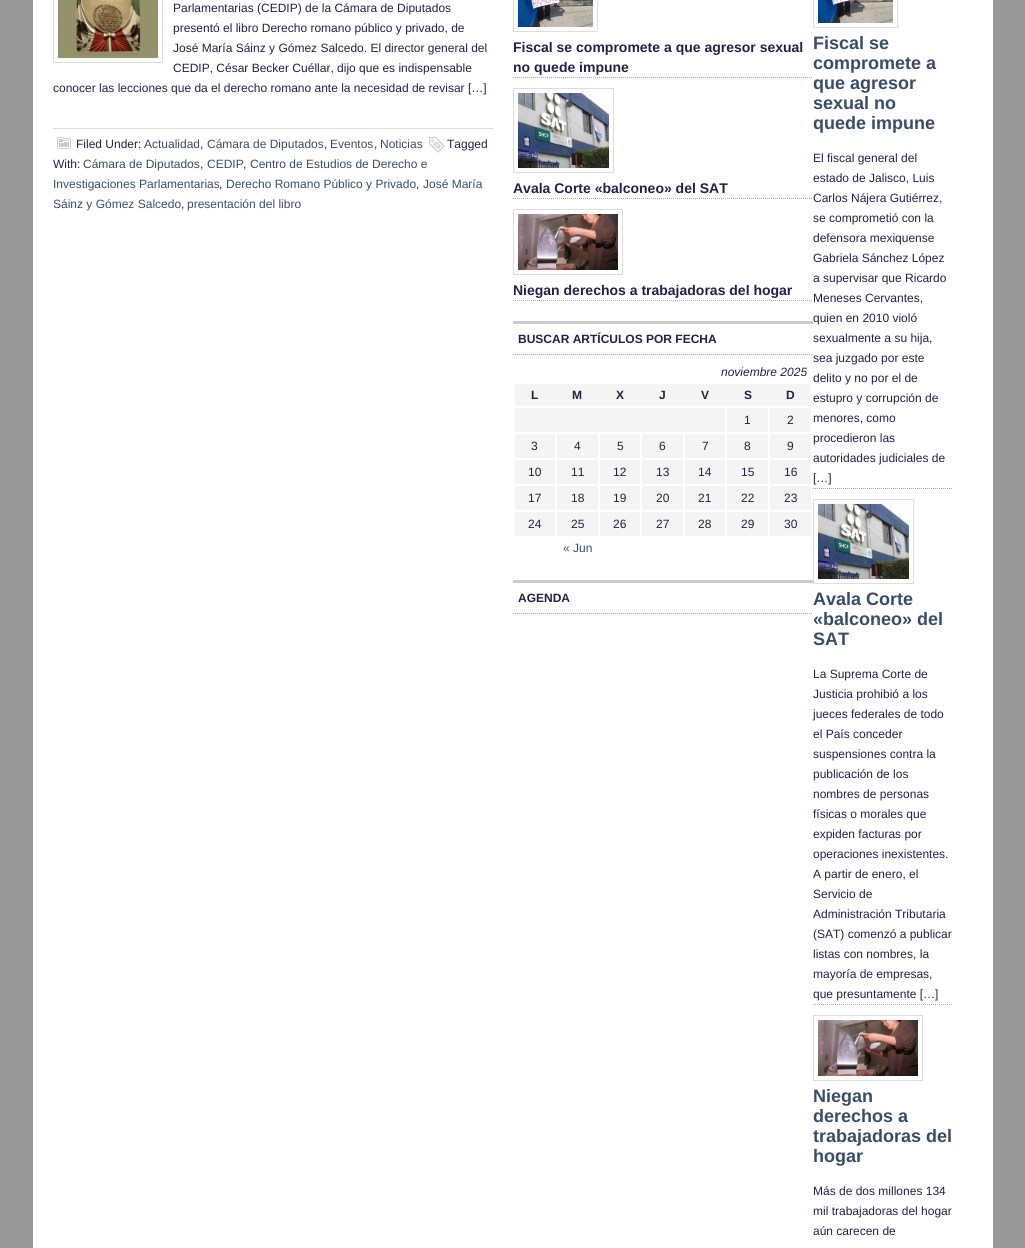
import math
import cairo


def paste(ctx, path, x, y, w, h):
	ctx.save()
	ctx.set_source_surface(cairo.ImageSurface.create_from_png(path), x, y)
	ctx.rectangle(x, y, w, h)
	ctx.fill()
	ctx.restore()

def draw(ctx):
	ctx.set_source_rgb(0.6, 0.6, 0.6)
	ctx.paint()
	ctx.set_source_rgb(1, 1, 1)
	ctx.rectangle(33, 0, 960, 1248)
	ctx.fill()
	ctx.rectangle(53.5, -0.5, 109, 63)
	ctx.set_source_rgb(0.867, 0.867, 0.867)
	ctx.set_line_width(1)
	ctx.stroke()
	paste(ctx, 'media/1.png', 58, 0, 100, 58)
	ctx.select_font_face('Liberation Sans')
	ctx.set_font_size(12)
	ctx.set_source_rgb(0.133, 0.133, 0.267)
	for x, y, s in [
		(173, 12, 'Parlamentarias (CEDIP) de la Cámara de Diputados'),
		(173, 32, 'presentó el libro Derecho romano público y privado, de'),
		(173, 52, 'José María Sáinz y Gómez Salcedo. El director general del'),
		(173, 72, 'CEDIP, César Becker Cuéllar, dijo que es indispensable'),
		(53, 92, 'conocer las lecciones que da el derecho romano ante la necesidad de revisar […]'),
	]:
		ctx.move_to(x, y)
		ctx.show_text(s)
	ctx.set_source_rgb(0.867, 0.867, 0.867)
	ctx.rectangle(53, 128, 440, 1)
	ctx.fill()
	paste(ctx, 'media/2.png', 57, 137, 14, 12)
	ctx.set_source_rgb(0.133, 0.133, 0.267)
	ctx.move_to(76, 148)
	ctx.show_text('Filed Under:')
	ctx.set_source_rgb(0.227, 0.302, 0.392)
	ctx.move_to(144, 148)
	ctx.show_text('Actualidad')
	ctx.set_source_rgb(0.133, 0.133, 0.267)
	ctx.move_to(200, 148)
	ctx.show_text(',')
	ctx.set_source_rgb(0.227, 0.302, 0.392)
	ctx.move_to(207, 148)
	ctx.show_text('Cámara de Diputados')
	ctx.set_source_rgb(0.133, 0.133, 0.267)
	ctx.move_to(324, 148)
	ctx.show_text(',')
	ctx.set_source_rgb(0.227, 0.302, 0.392)
	ctx.move_to(330, 148)
	ctx.show_text('Eventos')
	ctx.set_source_rgb(0.133, 0.133, 0.267)
	ctx.move_to(374, 148)
	ctx.show_text(',')
	ctx.set_source_rgb(0.227, 0.302, 0.392)
	ctx.move_to(380, 148)
	ctx.show_text('Noticias')
	paste(ctx, 'media/3.png', 429, 137, 16, 16)
	ctx.set_source_rgb(0.133, 0.133, 0.267)
	ctx.move_to(447, 148)
	ctx.show_text('Tagged')
	ctx.move_to(53, 168)
	ctx.show_text('With:')
	ctx.set_source_rgb(0.227, 0.302, 0.392)
	ctx.move_to(83, 168)
	ctx.show_text('Cámara de Diputados')
	ctx.set_source_rgb(0.133, 0.133, 0.267)
	ctx.move_to(200, 168)
	ctx.show_text(',')
	ctx.set_source_rgb(0.227, 0.302, 0.392)
	ctx.move_to(207, 168)
	ctx.show_text('CEDIP')
	ctx.set_source_rgb(0.133, 0.133, 0.267)
	ctx.move_to(243, 168)
	ctx.show_text(',')
	ctx.set_source_rgb(0.227, 0.302, 0.392)
	ctx.move_to(250, 168)
	ctx.show_text('Centro de Estudios de Derecho e')
	ctx.move_to(53, 188)
	ctx.show_text('Investigaciones Parlamentarias')
	ctx.set_source_rgb(0.133, 0.133, 0.267)
	ctx.move_to(219, 188)
	ctx.show_text(',')
	ctx.set_source_rgb(0.227, 0.302, 0.392)
	ctx.move_to(226, 188)
	ctx.show_text('Derecho Romano Público y Privado')
	ctx.set_source_rgb(0.133, 0.133, 0.267)
	ctx.move_to(416, 188)
	ctx.show_text(',')
	ctx.set_source_rgb(0.227, 0.302, 0.392)
	ctx.move_to(423, 188)
	ctx.show_text('José María')
	ctx.move_to(53, 208)
	ctx.show_text('Sáinz y Gómez Salcedo')
	ctx.set_source_rgb(0.133, 0.133, 0.267)
	ctx.move_to(181, 208)
	ctx.show_text(',')
	ctx.set_source_rgb(0.227, 0.302, 0.392)
	ctx.move_to(187, 208)
	ctx.show_text('presentación del libro')
	ctx.new_path()
	ctx.move_to(513, 77.5)
	ctx.line_to(813, 77.5)
	ctx.set_source_rgb(0.667, 0.667, 0.667)
	ctx.set_dash([1, 1])
	ctx.stroke()
	ctx.rectangle(513.5, -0.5, 84, 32)
	ctx.set_source_rgb(0.867, 0.867, 0.867)
	ctx.set_dash([])
	ctx.stroke()
	paste(ctx, 'media/4.png', 518, 0, 75, 27)
	ctx.select_font_face('Liberation Sans', cairo.FONT_SLANT_NORMAL, cairo.FONT_WEIGHT_BOLD)
	ctx.set_font_size(14)
	ctx.set_source_rgb(0.133, 0.133, 0.267)
	ctx.move_to(513, 52)
	ctx.show_text('Fiscal se compromete a que agresor sexual')
	ctx.move_to(513, 72)
	ctx.show_text('no quede impune')
	ctx.new_path()
	ctx.move_to(513, 198.5)
	ctx.line_to(813, 198.5)
	ctx.set_source_rgb(0.667, 0.667, 0.667)
	ctx.set_dash([1, 1])
	ctx.stroke()
	ctx.rectangle(513.5, 88.5, 100, 84)
	ctx.set_source_rgb(0.867, 0.867, 0.867)
	ctx.set_dash([])
	ctx.stroke()
	paste(ctx, 'media/5.png', 518, 93, 91, 75)
	ctx.set_source_rgb(0.133, 0.133, 0.267)
	ctx.move_to(513, 193)
	ctx.show_text('Avala Corte «balconeo» del SAT')
	ctx.new_path()
	ctx.move_to(513, 300.5)
	ctx.line_to(813, 300.5)
	ctx.set_source_rgb(0.667, 0.667, 0.667)
	ctx.set_dash([1, 1])
	ctx.stroke()
	ctx.rectangle(513.5, 209.5, 109, 65)
	ctx.set_source_rgb(0.867, 0.867, 0.867)
	ctx.set_dash([])
	ctx.stroke()
	paste(ctx, 'media/6.png', 518, 214, 100, 56)
	ctx.set_source_rgb(0.133, 0.133, 0.267)
	ctx.move_to(513, 295)
	ctx.show_text('Niegan derechos a trabajadoras del hogar')
	ctx.set_source_rgb(0.8, 0.8, 0.8)
	ctx.rectangle(513, 321, 300, 3)
	ctx.fill()
	ctx.new_path()
	ctx.move_to(513, 354.5)
	ctx.line_to(813, 354.5)
	ctx.set_source_rgb(0.667, 0.667, 0.667)
	ctx.set_dash([1, 1])
	ctx.stroke()
	ctx.set_font_size(12)
	ctx.set_source_rgb(0.133, 0.133, 0.267)
	ctx.move_to(518, 343)
	ctx.show_text('BUSCAR ARTÍCULOS POR FECHA')
	ctx.select_font_face('Liberation Sans', cairo.FONT_SLANT_ITALIC)
	ctx.move_to(721, 376)
	ctx.show_text('noviembre 2025')
	ctx.set_source_rgb(0.957, 0.957, 0.957)
	ctx.rectangle(515, 384, 296, 22)
	ctx.fill()
	ctx.select_font_face('Liberation Sans', cairo.FONT_SLANT_NORMAL, cairo.FONT_WEIGHT_BOLD)
	ctx.set_source_rgb(0.133, 0.133, 0.267)
	for x, y, s in [
		(531, 399, 'L'),
		(572, 399, 'M'),
		(616, 399, 'X'),
		(659, 399, 'J'),
		(701, 399, 'V'),
		(744, 399, 'S'),
		(786, 399, 'D'),
	]:
		ctx.move_to(x, y)
		ctx.show_text(s)
	ctx.set_source_rgb(0.957, 0.957, 0.957)
	ctx.rectangle(515, 408, 210, 24)
	ctx.fill()
	ctx.rectangle(727, 408, 41, 24)
	ctx.fill()
	ctx.select_font_face('Liberation Sans')
	ctx.set_source_rgb(0.133, 0.133, 0.267)
	ctx.move_to(744, 424)
	ctx.show_text('1')
	ctx.set_source_rgb(0.957, 0.957, 0.957)
	ctx.rectangle(770, 408, 41, 24)
	ctx.fill()
	ctx.set_source_rgb(0.133, 0.133, 0.267)
	ctx.move_to(787, 424)
	ctx.show_text('2')
	ctx.set_source_rgb(0.957, 0.957, 0.957)
	ctx.rectangle(515, 434, 40, 24)
	ctx.fill()
	ctx.set_source_rgb(0.133, 0.133, 0.267)
	ctx.move_to(531, 450)
	ctx.show_text('3')
	ctx.set_source_rgb(0.957, 0.957, 0.957)
	ctx.rectangle(557, 434, 41, 24)
	ctx.fill()
	ctx.set_source_rgb(0.133, 0.133, 0.267)
	ctx.move_to(574, 450)
	ctx.show_text('4')
	ctx.set_source_rgb(0.957, 0.957, 0.957)
	ctx.rectangle(600, 434, 40, 24)
	ctx.fill()
	ctx.set_source_rgb(0.133, 0.133, 0.267)
	ctx.move_to(617, 450)
	ctx.show_text('5')
	ctx.set_source_rgb(0.957, 0.957, 0.957)
	ctx.rectangle(642, 434, 41, 24)
	ctx.fill()
	ctx.set_source_rgb(0.133, 0.133, 0.267)
	ctx.move_to(659, 450)
	ctx.show_text('6')
	ctx.set_source_rgb(0.957, 0.957, 0.957)
	ctx.rectangle(685, 434, 40, 24)
	ctx.fill()
	ctx.set_source_rgb(0.133, 0.133, 0.267)
	ctx.move_to(702, 450)
	ctx.show_text('7')
	ctx.set_source_rgb(0.957, 0.957, 0.957)
	ctx.rectangle(727, 434, 41, 24)
	ctx.fill()
	ctx.set_source_rgb(0.133, 0.133, 0.267)
	ctx.move_to(744, 450)
	ctx.show_text('8')
	ctx.set_source_rgb(0.957, 0.957, 0.957)
	ctx.rectangle(770, 434, 41, 24)
	ctx.fill()
	ctx.set_source_rgb(0.133, 0.133, 0.267)
	ctx.move_to(787, 450)
	ctx.show_text('9')
	ctx.set_source_rgb(0.957, 0.957, 0.957)
	ctx.rectangle(515, 460, 40, 24)
	ctx.fill()
	ctx.set_source_rgb(0.133, 0.133, 0.267)
	ctx.move_to(528, 476)
	ctx.show_text('10')
	ctx.set_source_rgb(0.957, 0.957, 0.957)
	ctx.rectangle(557, 460, 41, 24)
	ctx.fill()
	ctx.set_source_rgb(0.133, 0.133, 0.267)
	ctx.move_to(571, 476)
	ctx.show_text('11')
	ctx.set_source_rgb(0.957, 0.957, 0.957)
	ctx.rectangle(600, 460, 40, 24)
	ctx.fill()
	ctx.set_source_rgb(0.133, 0.133, 0.267)
	ctx.move_to(613, 476)
	ctx.show_text('12')
	ctx.set_source_rgb(0.957, 0.957, 0.957)
	ctx.rectangle(642, 460, 41, 24)
	ctx.fill()
	ctx.set_source_rgb(0.133, 0.133, 0.267)
	ctx.move_to(656, 476)
	ctx.show_text('13')
	ctx.set_source_rgb(0.957, 0.957, 0.957)
	ctx.rectangle(685, 460, 40, 24)
	ctx.fill()
	ctx.set_source_rgb(0.133, 0.133, 0.267)
	ctx.move_to(698, 476)
	ctx.show_text('14')
	ctx.set_source_rgb(0.957, 0.957, 0.957)
	ctx.rectangle(727, 460, 41, 24)
	ctx.fill()
	ctx.set_source_rgb(0.133, 0.133, 0.267)
	ctx.move_to(741, 476)
	ctx.show_text('15')
	ctx.set_source_rgb(0.957, 0.957, 0.957)
	ctx.rectangle(770, 460, 41, 24)
	ctx.fill()
	ctx.set_source_rgb(0.133, 0.133, 0.267)
	ctx.move_to(784, 476)
	ctx.show_text('16')
	ctx.set_source_rgb(0.957, 0.957, 0.957)
	ctx.rectangle(515, 486, 40, 24)
	ctx.fill()
	ctx.set_source_rgb(0.133, 0.133, 0.267)
	ctx.move_to(528, 502)
	ctx.show_text('17')
	ctx.set_source_rgb(0.957, 0.957, 0.957)
	ctx.rectangle(557, 486, 41, 24)
	ctx.fill()
	ctx.set_source_rgb(0.133, 0.133, 0.267)
	ctx.move_to(571, 502)
	ctx.show_text('18')
	ctx.set_source_rgb(0.957, 0.957, 0.957)
	ctx.rectangle(600, 486, 40, 24)
	ctx.fill()
	ctx.set_source_rgb(0.133, 0.133, 0.267)
	ctx.move_to(613, 502)
	ctx.show_text('19')
	ctx.set_source_rgb(0.957, 0.957, 0.957)
	ctx.rectangle(642, 486, 41, 24)
	ctx.fill()
	ctx.set_source_rgb(0.133, 0.133, 0.267)
	ctx.move_to(656, 502)
	ctx.show_text('20')
	ctx.set_source_rgb(0.957, 0.957, 0.957)
	ctx.rectangle(685, 486, 40, 24)
	ctx.fill()
	ctx.set_source_rgb(0.133, 0.133, 0.267)
	ctx.move_to(698, 502)
	ctx.show_text('21')
	ctx.set_source_rgb(0.957, 0.957, 0.957)
	ctx.rectangle(727, 486, 41, 24)
	ctx.fill()
	ctx.set_source_rgb(0.133, 0.133, 0.267)
	ctx.move_to(741, 502)
	ctx.show_text('22')
	ctx.set_source_rgb(0.957, 0.957, 0.957)
	ctx.rectangle(770, 486, 41, 24)
	ctx.fill()
	ctx.set_source_rgb(0.133, 0.133, 0.267)
	ctx.move_to(784, 502)
	ctx.show_text('23')
	ctx.set_source_rgb(0.957, 0.957, 0.957)
	ctx.rectangle(515, 512, 40, 24)
	ctx.fill()
	ctx.set_source_rgb(0.133, 0.133, 0.267)
	ctx.move_to(528, 528)
	ctx.show_text('24')
	ctx.set_source_rgb(0.957, 0.957, 0.957)
	ctx.rectangle(557, 512, 41, 24)
	ctx.fill()
	ctx.set_source_rgb(0.133, 0.133, 0.267)
	ctx.move_to(571, 528)
	ctx.show_text('25')
	ctx.set_source_rgb(0.957, 0.957, 0.957)
	ctx.rectangle(600, 512, 40, 24)
	ctx.fill()
	ctx.set_source_rgb(0.133, 0.133, 0.267)
	ctx.move_to(613, 528)
	ctx.show_text('26')
	ctx.set_source_rgb(0.957, 0.957, 0.957)
	ctx.rectangle(642, 512, 41, 24)
	ctx.fill()
	ctx.set_source_rgb(0.133, 0.133, 0.267)
	ctx.move_to(656, 528)
	ctx.show_text('27')
	ctx.set_source_rgb(0.957, 0.957, 0.957)
	ctx.rectangle(685, 512, 40, 24)
	ctx.fill()
	ctx.set_source_rgb(0.133, 0.133, 0.267)
	ctx.move_to(698, 528)
	ctx.show_text('28')
	ctx.set_source_rgb(0.957, 0.957, 0.957)
	ctx.rectangle(727, 512, 41, 24)
	ctx.fill()
	ctx.set_source_rgb(0.133, 0.133, 0.267)
	ctx.move_to(741, 528)
	ctx.show_text('29')
	ctx.set_source_rgb(0.957, 0.957, 0.957)
	ctx.rectangle(770, 512, 41, 24)
	ctx.fill()
	ctx.set_source_rgb(0.133, 0.133, 0.267)
	ctx.move_to(784, 528)
	ctx.show_text('30')
	ctx.set_source_rgb(0.227, 0.302, 0.392)
	ctx.move_to(563, 552)
	ctx.show_text('« Jun')
	ctx.set_source_rgb(0.8, 0.8, 0.8)
	ctx.rectangle(513, 580, 300, 3)
	ctx.fill()
	ctx.new_path()
	ctx.move_to(513, 613.5)
	ctx.line_to(813, 613.5)
	ctx.set_source_rgb(0.667, 0.667, 0.667)
	ctx.stroke()
	ctx.select_font_face('Liberation Sans', cairo.FONT_SLANT_NORMAL, cairo.FONT_WEIGHT_BOLD)
	ctx.set_source_rgb(0.133, 0.133, 0.267)
	ctx.move_to(518, 602)
	ctx.show_text('AGENDA')
	ctx.new_path()
	ctx.move_to(813, 488.5)
	ctx.line_to(953, 488.5)
	ctx.set_source_rgb(0.667, 0.667, 0.667)
	ctx.stroke()
	ctx.rectangle(813.5, -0.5, 84, 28)
	ctx.set_source_rgb(0.867, 0.867, 0.867)
	ctx.set_dash([])
	ctx.stroke()
	paste(ctx, 'media/7.png', 818, 0, 75, 23)
	ctx.set_font_size(18)
	ctx.set_source_rgb(0.227, 0.302, 0.392)
	for x, y, s in [
		(813, 49, 'Fiscal se'),
		(813, 69, 'compromete a'),
		(813, 89, 'que agresor'),
		(813, 109, 'sexual no'),
		(813, 129, 'quede impune'),
	]:
		ctx.move_to(x, y)
		ctx.show_text(s)
	ctx.select_font_face('Liberation Sans')
	ctx.set_font_size(12)
	ctx.set_source_rgb(0.133, 0.133, 0.267)
	for x, y, s in [
		(813, 162, 'El fiscal general del'),
		(813, 182, 'estado de Jalisco, Luis'),
		(813, 202, 'Carlos Nájera Gutiérrez,'),
		(813, 222, 'se comprometió con la'),
		(813, 242, 'defensora mexiquense'),
		(813, 262, 'Gabriela Sánchez López'),
		(813, 282, 'a supervisar que Ricardo'),
		(813, 302, 'Meneses Cervantes,'),
		(813, 322, 'quien en 2010 violó'),
		(813, 342, 'sexualmente a su hija,'),
		(813, 362, 'sea juzgado por este'),
		(813, 382, 'delito y no por el de'),
		(813, 402, 'estupro y corrupción de'),
		(813, 422, 'menores, como'),
		(813, 442, 'procedieron las'),
		(813, 462, 'autoridades judiciales de'),
		(813, 482, '[…]'),
	]:
		ctx.move_to(x, y)
		ctx.show_text(s)
	ctx.new_path()
	ctx.move_to(813, 1004.5)
	ctx.line_to(953, 1004.5)
	ctx.set_source_rgb(0.667, 0.667, 0.667)
	ctx.set_dash([1, 1])
	ctx.stroke()
	ctx.rectangle(813.5, 499.5, 100, 84)
	ctx.set_source_rgb(0.867, 0.867, 0.867)
	ctx.set_dash([])
	ctx.stroke()
	paste(ctx, 'media/5.png', 818, 504, 91, 75)
	ctx.select_font_face('Liberation Sans', cairo.FONT_SLANT_NORMAL, cairo.FONT_WEIGHT_BOLD)
	ctx.set_font_size(18)
	ctx.set_source_rgb(0.227, 0.302, 0.392)
	for x, y, s in [
		(813, 605, 'Avala Corte'),
		(813, 625, '«balconeo» del'),
		(813, 645, 'SAT'),
	]:
		ctx.move_to(x, y)
		ctx.show_text(s)
	ctx.select_font_face('Liberation Sans')
	ctx.set_font_size(12)
	ctx.set_source_rgb(0.133, 0.133, 0.267)
	for x, y, s in [
		(813, 678, 'La Suprema Corte de'),
		(813, 698, 'Justicia prohibió a los'),
		(813, 718, 'jueces federales de todo'),
		(813, 738, 'el País conceder'),
		(813, 758, 'suspensiones contra la'),
		(813, 778, 'publicación de los'),
		(813, 798, 'nombres de personas'),
		(813, 818, 'físicas o morales que'),
		(813, 838, 'expiden facturas por'),
		(813, 858, 'operaciones inexistentes.'),
		(813, 878, 'A partir de enero, el'),
		(813, 898, 'Servicio de'),
		(813, 918, 'Administración Tributaria'),
		(813, 938, '(SAT) comenzó a publicar'),
		(813, 958, 'listas con nombres, la'),
		(813, 978, 'mayoría de empresas,'),
		(813, 998, 'que presuntamente […]'),
	]:
		ctx.move_to(x, y)
		ctx.show_text(s)
	ctx.rectangle(813.5, 1015.5, 109, 65)
	ctx.set_source_rgb(0.867, 0.867, 0.867)
	ctx.stroke()
	paste(ctx, 'media/6.png', 818, 1020, 100, 56)
	ctx.select_font_face('Liberation Sans', cairo.FONT_SLANT_NORMAL, cairo.FONT_WEIGHT_BOLD)
	ctx.set_font_size(18)
	ctx.set_source_rgb(0.227, 0.302, 0.392)
	for x, y, s in [
		(813, 1102, 'Niegan'),
		(813, 1122, 'derechos a'),
		(813, 1142, 'trabajadoras del'),
		(813, 1162, 'hogar'),
	]:
		ctx.move_to(x, y)
		ctx.show_text(s)
	ctx.select_font_face('Liberation Sans')
	ctx.set_font_size(12)
	ctx.set_source_rgb(0.133, 0.133, 0.267)
	for x, y, s in [
		(813, 1195, 'Más de dos millones 134'),
		(813, 1215, 'mil trabajadoras del hogar'),
		(813, 1235, 'aún carecen de'),
	]:
		ctx.move_to(x, y)
		ctx.show_text(s)


surface = cairo.ImageSurface(cairo.FORMAT_RGB24, 1025, 1248)
ctx = cairo.Context(surface)
options = cairo.FontOptions()
options.set_hint_metrics(cairo.HINT_METRICS_OFF)
options.set_hint_style(cairo.HINT_STYLE_NONE)
ctx.set_font_options(options)
ctx.set_miter_limit(4)
draw(ctx)
surface.write_to_png('image.png')
